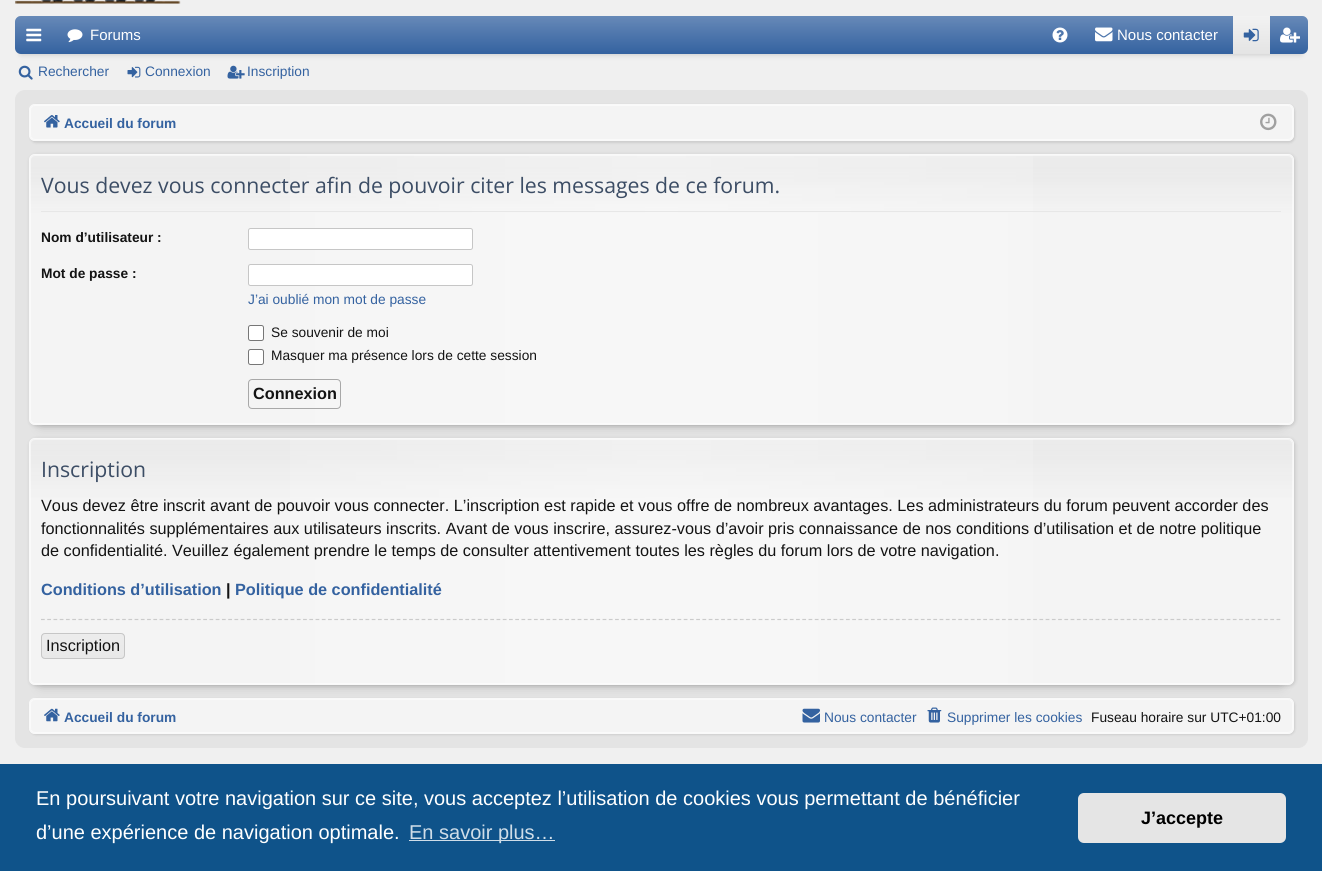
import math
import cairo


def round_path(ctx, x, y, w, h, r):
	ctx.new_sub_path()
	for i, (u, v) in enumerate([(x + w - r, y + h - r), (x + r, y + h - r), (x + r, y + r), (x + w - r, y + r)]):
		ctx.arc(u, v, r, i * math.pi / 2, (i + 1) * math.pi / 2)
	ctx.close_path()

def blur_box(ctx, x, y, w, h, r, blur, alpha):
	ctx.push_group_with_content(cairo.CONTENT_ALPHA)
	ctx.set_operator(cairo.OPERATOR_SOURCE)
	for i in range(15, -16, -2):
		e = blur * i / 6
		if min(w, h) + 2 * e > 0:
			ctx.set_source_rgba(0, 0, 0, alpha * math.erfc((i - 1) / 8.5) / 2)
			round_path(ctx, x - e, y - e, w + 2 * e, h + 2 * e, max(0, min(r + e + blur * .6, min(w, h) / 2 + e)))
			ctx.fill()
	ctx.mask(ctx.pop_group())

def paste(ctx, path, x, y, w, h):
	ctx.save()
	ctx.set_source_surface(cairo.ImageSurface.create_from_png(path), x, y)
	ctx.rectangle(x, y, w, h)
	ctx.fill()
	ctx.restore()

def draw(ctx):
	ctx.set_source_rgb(0.941, 0.941, 0.941)
	ctx.paint()
	paste(ctx, 'media/1.png', 15, 0, 166, 4)
	ctx.set_source_rgb(0, 0, 0)
	blur_box(ctx, 21, 29, 1280, 25, 0, 3, 0.2)
	ctx.set_source_rgb(0.204, 0.384, 0.627)
	round_path(ctx, 15, 16, 1293, 38, 6)
	ctx.fill()
	gradient = cairo.LinearGradient(661, 16, 661, 54)
	gradient.add_color_stop_rgba(0, 1, 1, 1, 0.25)
	gradient.add_color_stop_rgba(1, 1, 1, 1, 0)
	ctx.set_source(gradient)
	round_path(ctx, 15, 16, 1293, 38, 6)
	ctx.fill()
	paste(ctx, 'media/2.png', 26, 28, 16, 14)
	paste(ctx, 'media/3.png', 67, 29, 16, 14)
	ctx.select_font_face('Liberation Sans')
	ctx.set_font_size(15)
	ctx.set_source_rgb(1, 1, 1)
	ctx.move_to(90, 40)
	ctx.show_text('Forums')
	paste(ctx, 'media/4.png', 1052, 27, 16, 16)
	paste(ctx, 'media/5.png', 1095, 27, 18, 15)
	ctx.move_to(1117, 40)
	ctx.show_text('Nous contacter')
	gradient = cairo.LinearGradient(1251, 16, 1251, 54)
	gradient.add_color_stop_rgba(0, 0.949, 0.949, 0.949, 1)
	gradient.add_color_stop_rgba(1, 0.894, 0.894, 0.894, 1)
	ctx.set_source(gradient)
	ctx.rectangle(1233, 16, 37, 38)
	ctx.fill()
	paste(ctx, 'media/6.png', 1243, 28, 16, 14)
	paste(ctx, 'media/7.png', 1280, 27, 20, 16)
	paste(ctx, 'media/8.png', 18, 65, 15, 15)
	ctx.set_font_size(13.75)
	ctx.set_source_rgb(0.204, 0.384, 0.627)
	ctx.move_to(38, 76)
	ctx.show_text('Rechercher')
	paste(ctx, 'media/9.png', 127, 66, 14, 12)
	ctx.move_to(145, 76)
	ctx.show_text('Connexion')
	paste(ctx, 'media/10.png', 227, 65, 18, 14)
	ctx.move_to(247, 76)
	ctx.show_text('Inscription')
	ctx.set_source_rgb(0.894, 0.894, 0.894)
	round_path(ctx, 15.5, 90.5, 1292, 657, 9.5)
	ctx.fill_preserve()
	ctx.set_line_width(1)
	ctx.stroke()
	ctx.set_source_rgb(0, 0, 0)
	blur_box(ctx, 30, 105, 1265, 38, 6, 1, 0.1)
	ctx.set_source_rgb(0.957, 0.957, 0.957)
	round_path(ctx, 29, 104, 1265, 37, 6)
	ctx.fill()
	round_path(ctx, 30.5, 105.5, 1262, 34, 4.5)
	ctx.set_source_rgb(0.98, 0.98, 0.98)
	ctx.stroke()
	round_path(ctx, 29.5, 104.5, 1264, 36, 5.5)
	ctx.set_source_rgb(0.976, 0.976, 0.976)
	ctx.stroke()
	paste(ctx, 'media/11.png', 44, 115, 16, 13)
	ctx.select_font_face('Liberation Sans', cairo.FONT_SLANT_NORMAL, cairo.FONT_WEIGHT_BOLD)
	ctx.set_source_rgb(0.204, 0.384, 0.627)
	ctx.move_to(64, 128)
	ctx.show_text('Accueil du forum')
	paste(ctx, 'media/12.png', 1260, 113, 17, 18)
	ctx.set_source_rgb(0, 0, 0)
	blur_box(ctx, 41, 179, 1240, 246, 0, 6, 0.2)
	blur_box(ctx, 30, 155, 1265, 271, 6, 2, 0.15)
	ctx.set_source_rgb(0.957, 0.957, 0.957)
	round_path(ctx, 29, 154, 1265, 271, 6)
	ctx.fill()
	ctx.save()
	round_path(ctx, 29, 154, 1265, 271, 6)
	ctx.clip()
	gradient = cairo.LinearGradient(661, 155, 661, 424)
	gradient.add_color_stop_rgba(0, 0.8, 0.8, 0.8, 0.2)
	gradient.add_color_stop_rgba(0.05, 0.8, 0.8, 0.8, 0.25)
	gradient.add_color_stop_rgba(0.23, 0.8, 0.8, 0.8, 0)
	ctx.set_source(gradient)
	ctx.rectangle(29, 155, 1265, 58)
	ctx.fill()
	ctx.restore()
	gradient = cairo.LinearGradient(30, 289, 1293, 289)
	gradient.add_color_stop_rgba(0, 1, 1, 1, 0)
	gradient.add_color_stop_rgba(0.5, 1, 1, 1, 0.3)
	gradient.add_color_stop_rgba(1, 1, 1, 1, 0)
	ctx.set_source(gradient)
	ctx.rectangle(290, 155, 743, 269)
	ctx.fill()
	round_path(ctx, 30.5, 155.5, 1262, 268, 4.5)
	ctx.set_source_rgba(1, 1, 1, 0.5)
	ctx.stroke()
	round_path(ctx, 29.5, 154.5, 1264, 270, 5.5)
	ctx.set_source_rgb(0.976, 0.976, 0.976)
	ctx.stroke()
	ctx.set_source_rgb(0.906, 0.906, 0.906)
	ctx.rectangle(41, 211, 1240, 1)
	ctx.fill()
	ctx.select_font_face('Open Sans')
	ctx.set_font_size(21.25)
	ctx.set_source_rgb(0.235, 0.302, 0.396)
	ctx.move_to(41, 193)
	ctx.show_text('Vous devez vous connecter afin de pouvoir citer les messages de ce forum.')
	ctx.select_font_face('Liberation Sans', cairo.FONT_SLANT_NORMAL, cairo.FONT_WEIGHT_BOLD)
	ctx.set_font_size(13.75)
	ctx.set_source_rgb(0.078, 0.078, 0.078)
	ctx.move_to(41, 242)
	ctx.show_text('Nom d’utilisateur :')
	ctx.set_source_rgb(1, 1, 1)
	round_path(ctx, 248.5, 228.5, 224, 21, 2)
	ctx.fill_preserve()
	ctx.set_source_rgb(0.776, 0.776, 0.776)
	ctx.stroke()
	ctx.set_source_rgb(0.078, 0.078, 0.078)
	ctx.move_to(41, 278)
	ctx.show_text('Mot de passe :')
	ctx.set_source_rgb(1, 1, 1)
	round_path(ctx, 248.5, 264.5, 224, 21, 2)
	ctx.fill_preserve()
	ctx.set_source_rgb(0.776, 0.776, 0.776)
	ctx.stroke()
	ctx.select_font_face('Liberation Sans')
	ctx.set_source_rgb(0.204, 0.384, 0.627)
	ctx.move_to(248, 304)
	ctx.show_text('J’ai oublié mon mot de passe')
	ctx.set_source_rgb(1, 1, 1)
	round_path(ctx, 248.5, 325.5, 15, 15, 2)
	ctx.fill_preserve()
	ctx.set_source_rgb(0.463, 0.463, 0.463)
	ctx.stroke()
	ctx.set_source_rgb(0.078, 0.078, 0.078)
	ctx.move_to(271, 337)
	ctx.show_text('Se souvenir de moi')
	ctx.set_source_rgb(1, 1, 1)
	round_path(ctx, 248.5, 349.5, 15, 15, 2)
	ctx.fill_preserve()
	ctx.set_source_rgb(0.463, 0.463, 0.463)
	ctx.stroke()
	ctx.set_source_rgb(0.078, 0.078, 0.078)
	ctx.move_to(271, 360)
	ctx.show_text('Masquer ma présence lors de cette session')
	round_path(ctx, 248.5, 379.5, 92, 29, 3.5)
	ctx.set_source_rgb(0.659, 0.659, 0.659)
	ctx.stroke()
	ctx.select_font_face('Liberation Sans', cairo.FONT_SLANT_NORMAL, cairo.FONT_WEIGHT_BOLD)
	ctx.set_font_size(16.25)
	ctx.set_source_rgb(0.078, 0.078, 0.078)
	ctx.move_to(253, 399)
	ctx.show_text('Connexion')
	ctx.set_source_rgb(0, 0, 0)
	blur_box(ctx, 41, 463, 1240, 222, 0, 6, 0.2)
	blur_box(ctx, 30, 439, 1265, 247, 6, 2, 0.15)
	ctx.set_source_rgb(0.957, 0.957, 0.957)
	round_path(ctx, 29, 438, 1265, 247, 6)
	ctx.fill()
	ctx.save()
	round_path(ctx, 29, 438, 1265, 247, 6)
	ctx.clip()
	gradient = cairo.LinearGradient(661, 439, 661, 684)
	gradient.add_color_stop_rgba(0, 0.8, 0.8, 0.8, 0.2)
	gradient.add_color_stop_rgba(0.05, 0.8, 0.8, 0.8, 0.25)
	gradient.add_color_stop_rgba(0.26, 0.8, 0.8, 0.8, 0)
	ctx.set_source(gradient)
	ctx.rectangle(29, 439, 1265, 59)
	ctx.fill()
	ctx.restore()
	gradient = cairo.LinearGradient(30, 561, 1293, 561)
	gradient.add_color_stop_rgba(0, 1, 1, 1, 0)
	gradient.add_color_stop_rgba(0.5, 1, 1, 1, 0.3)
	gradient.add_color_stop_rgba(1, 1, 1, 1, 0)
	ctx.set_source(gradient)
	ctx.rectangle(290, 439, 743, 245)
	ctx.fill()
	round_path(ctx, 30.5, 439.5, 1262, 244, 4.5)
	ctx.set_source_rgba(1, 1, 1, 0.5)
	ctx.stroke()
	round_path(ctx, 29.5, 438.5, 1264, 246, 5.5)
	ctx.set_source_rgb(0.976, 0.976, 0.976)
	ctx.stroke()
	ctx.select_font_face('Open Sans')
	ctx.set_font_size(21.25)
	ctx.set_source_rgb(0.235, 0.302, 0.396)
	ctx.move_to(41, 477)
	ctx.show_text('Inscription')
	ctx.select_font_face('Liberation Sans')
	ctx.set_font_size(16.25)
	ctx.set_source_rgb(0.078, 0.078, 0.078)
	for x, y, s in [
		(41, 511, 'Vous devez être inscrit avant de pouvoir vous connecter. L’inscription est rapide et vous offre de nombreux avantages. Les administrateurs du forum peuvent accorder des'),
		(41, 534, 'fonctionnalités supplémentaires aux utilisateurs inscrits. Avant de vous inscrire, assurez-vous d’avoir pris connaissance de nos conditions d’utilisation et de notre politique'),
		(41, 556, 'de confidentialité. Veuillez également prendre le temps de consulter attentivement toutes les règles du forum lors de votre navigation.'),
	]:
		ctx.move_to(x, y)
		ctx.show_text(s)
	ctx.select_font_face('Liberation Sans', cairo.FONT_SLANT_NORMAL, cairo.FONT_WEIGHT_BOLD)
	ctx.set_source_rgb(0.204, 0.384, 0.627)
	ctx.move_to(41, 595)
	ctx.show_text('Conditions d’utilisation')
	ctx.set_source_rgb(0.078, 0.078, 0.078)
	ctx.move_to(226, 595)
	ctx.show_text('|')
	ctx.set_source_rgb(0.204, 0.384, 0.627)
	ctx.move_to(235, 595)
	ctx.show_text('Politique de confidentialité')
	ctx.new_path()
	ctx.move_to(41, 619.5)
	ctx.line_to(1281, 619.5)
	ctx.set_source_rgb(0.796, 0.796, 0.796)
	ctx.set_line_width(1.2)
	ctx.set_dash([3.75, 2.49])
	ctx.stroke()
	ctx.set_source_rgb(0.91, 0.91, 0.91)
	round_path(ctx, 41, 633, 84, 26, 4)
	ctx.fill()
	ctx.save()
	round_path(ctx, 41, 633, 84, 26, 4)
	ctx.clip()
	gradient = cairo.LinearGradient(83, 634, 83, 658)
	gradient.add_color_stop_rgba(0, 1, 1, 1, 0.2)
	gradient.add_color_stop_rgba(1, 1, 1, 1, 0)
	ctx.set_source(gradient)
	ctx.rectangle(41, 634, 84, 21)
	ctx.fill()
	ctx.restore()
	round_path(ctx, 41.5, 633.5, 83, 25, 3.5)
	ctx.set_source_rgb(0.776, 0.776, 0.776)
	ctx.set_line_width(1)
	ctx.set_dash([])
	ctx.stroke()
	ctx.select_font_face('Liberation Sans')
	ctx.set_source_rgb(0.078, 0.078, 0.078)
	ctx.move_to(46, 651)
	ctx.show_text('Inscription')
	ctx.set_source_rgb(0, 0, 0)
	blur_box(ctx, 30, 699, 1265, 36, 6, 1, 0.1)
	ctx.set_source_rgb(0.957, 0.957, 0.957)
	round_path(ctx, 29, 698, 1265, 36, 6)
	ctx.fill()
	round_path(ctx, 30.5, 699.5, 1262, 33, 4.5)
	ctx.set_source_rgb(0.98, 0.98, 0.98)
	ctx.stroke()
	round_path(ctx, 29.5, 698.5, 1264, 35, 5.5)
	ctx.set_source_rgb(0.976, 0.976, 0.976)
	ctx.stroke()
	paste(ctx, 'media/13.png', 44, 708, 16, 14)
	ctx.select_font_face('Liberation Sans', cairo.FONT_SLANT_NORMAL, cairo.FONT_WEIGHT_BOLD)
	ctx.set_font_size(13.75)
	ctx.set_source_rgb(0.204, 0.384, 0.627)
	ctx.move_to(64, 722)
	ctx.show_text('Accueil du forum')
	paste(ctx, 'media/14.png', 802, 708, 18, 15)
	ctx.select_font_face('Liberation Sans')
	ctx.move_to(824, 722)
	ctx.show_text('Nous contacter')
	paste(ctx, 'media/15.png', 927, 707, 15, 16)
	ctx.move_to(947, 722)
	ctx.show_text('Supprimer les cookies')
	ctx.set_source_rgb(0.078, 0.078, 0.078)
	ctx.move_to(1091, 722)
	ctx.show_text('Fuseau horaire sur UTC+01:00')
	ctx.set_source_rgb(0.059, 0.325, 0.541)
	ctx.rectangle(0, 764, 1322, 107)
	ctx.fill()
	ctx.set_font_size(20)
	ctx.set_source_rgb(1, 1, 1)
	ctx.move_to(36, 805)
	ctx.show_text('En poursuivant votre navigation sur ce site, vous acceptez l’utilisation de cookies vous permettant de bénéficier')
	ctx.move_to(36, 839)
	ctx.show_text('d’une expérience de navigation optimale.')
	ctx.set_source_rgb(0.812, 0.867, 0.91)
	ctx.rectangle(409, 840, 146, 1)
	ctx.fill()
	ctx.move_to(409, 839)
	ctx.show_text('En savoir plus…')
	ctx.set_source_rgb(0.898, 0.898, 0.898)
	round_path(ctx, 1078, 793, 208, 50, 6)
	ctx.fill()
	ctx.select_font_face('Liberation Sans', cairo.FONT_SLANT_NORMAL, cairo.FONT_WEIGHT_BOLD)
	ctx.set_font_size(18)
	ctx.set_source_rgb(0, 0, 0)
	ctx.move_to(1141, 824)
	ctx.show_text('J’accepte')


surface = cairo.ImageSurface(cairo.FORMAT_RGB24, 1322, 871)
ctx = cairo.Context(surface)
options = cairo.FontOptions()
options.set_hint_metrics(cairo.HINT_METRICS_OFF)
options.set_hint_style(cairo.HINT_STYLE_NONE)
ctx.set_font_options(options)
ctx.set_miter_limit(4)
draw(ctx)
surface.write_to_png('image.png')
